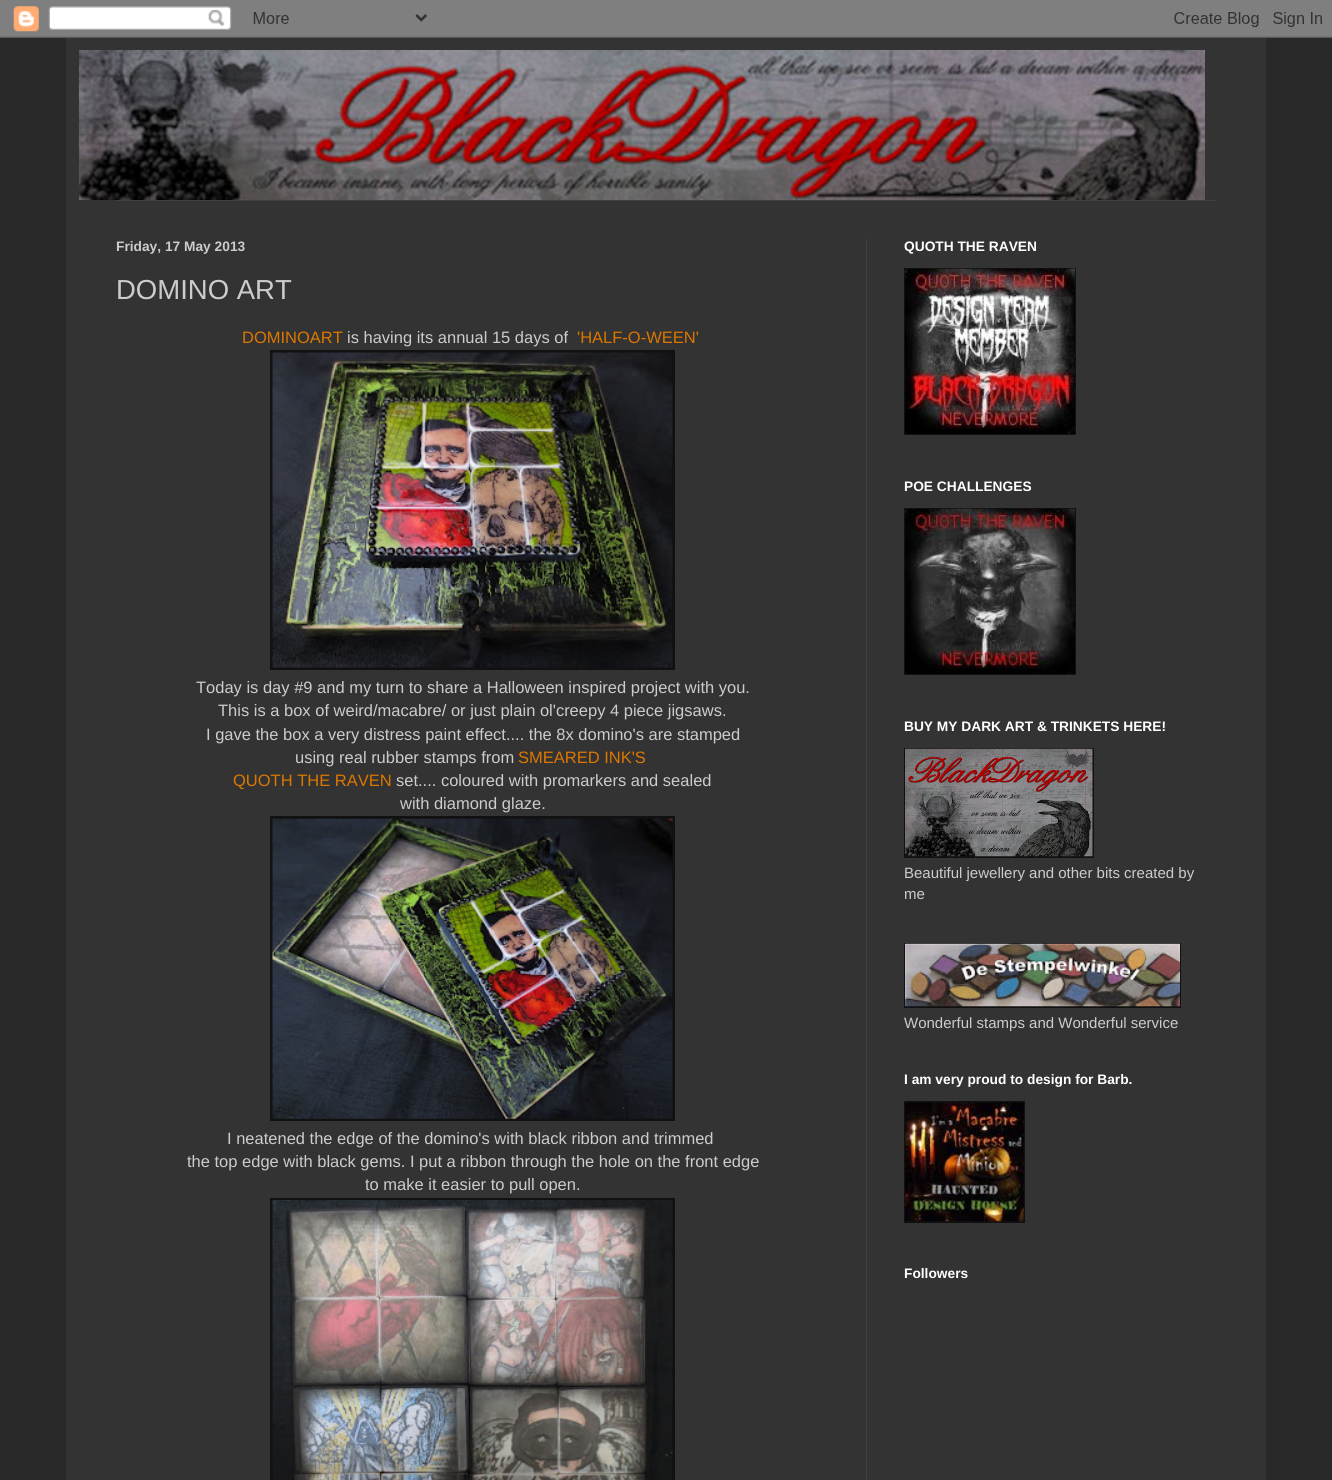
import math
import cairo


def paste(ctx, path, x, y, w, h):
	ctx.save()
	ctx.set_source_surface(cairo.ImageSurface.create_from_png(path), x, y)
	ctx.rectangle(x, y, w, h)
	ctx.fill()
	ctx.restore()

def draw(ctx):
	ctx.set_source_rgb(0.161, 0.161, 0.161)
	ctx.paint()
	paste(ctx, 'media/1.png', 0, 0, 1332, 38)
	ctx.set_source_rgb(0.2, 0.2, 0.2)
	ctx.rectangle(66, 38, 1200, 1442)
	ctx.fill()
	paste(ctx, 'media/2.png', 78, 50, 1127, 150)
	ctx.set_source_rgb(0.251, 0.251, 0.251)
	ctx.rectangle(116, 200, 1100, 1)
	ctx.fill()
	ctx.rectangle(866, 239, 1, 1241)
	ctx.fill()
	ctx.select_font_face('Liberation Sans', cairo.FONT_SLANT_NORMAL, cairo.FONT_WEIGHT_BOLD)
	ctx.set_font_size(13.75)
	ctx.set_source_rgb(0.8, 0.8, 0.8)
	ctx.move_to(116, 251)
	ctx.show_text('Friday, 17 May 2013')
	ctx.select_font_face('Liberation Sans')
	ctx.set_font_size(27.5)
	ctx.move_to(116, 299)
	ctx.show_text('DOMINO ART')
	ctx.set_font_size(16.5)
	ctx.set_source_rgb(0.867, 0.467, 0)
	ctx.move_to(242, 343)
	ctx.show_text('DOMINOART')
	ctx.set_source_rgb(0.8, 0.8, 0.8)
	ctx.move_to(347, 343)
	ctx.show_text('is having its annual 15 days of')
	ctx.set_source_rgb(0.867, 0.467, 0)
	ctx.move_to(577, 343)
	ctx.show_text('\'HALF-O-WEEN\'')
	ctx.set_source_rgb(0.067, 0.067, 0.067)
	ctx.rectangle(270, 350, 405, 320)
	ctx.fill()
	paste(ctx, 'media/3.png', 272, 352, 401, 316)
	ctx.set_source_rgb(0.8, 0.8, 0.8)
	for x, y, s in [
		(196, 693, 'Today is day #9 and my turn to share a Halloween inspired project with you.'),
		(218, 716, 'This is a box of weird/macabre/ or just plain ol\'creepy 4 piece jigsaws.'),
		(206, 740, 'I gave the box a very distress paint effect.... the 8x domino\'s are stamped'),
		(295, 763, 'using real rubber stamps from'),
	]:
		ctx.move_to(x, y)
		ctx.show_text(s)
	ctx.set_source_rgb(0.867, 0.467, 0)
	ctx.move_to(518, 763)
	ctx.show_text('SMEARED INK\'S')
	ctx.move_to(233, 786)
	ctx.show_text('QUOTH THE RAVEN')
	ctx.set_source_rgb(0.8, 0.8, 0.8)
	ctx.move_to(396, 786)
	ctx.show_text('set.... coloured with promarkers and sealed')
	ctx.move_to(400, 809)
	ctx.show_text('with diamond glaze.')
	ctx.set_source_rgb(0.067, 0.067, 0.067)
	ctx.rectangle(270, 816, 405, 305)
	ctx.fill()
	paste(ctx, 'media/4.png', 272, 818, 401, 301)
	ctx.set_source_rgb(0.8, 0.8, 0.8)
	for x, y, s in [
		(227, 1144, 'I neatened the edge of the domino\'s with black ribbon and trimmed'),
		(187, 1167, 'the top edge with black gems. I put a ribbon through the hole on the front edge'),
		(365, 1190, 'to make it easier to pull open.'),
	]:
		ctx.move_to(x, y)
		ctx.show_text(s)
	ctx.set_source_rgb(0.067, 0.067, 0.067)
	ctx.rectangle(270, 1198, 405, 282)
	ctx.fill()
	paste(ctx, 'media/5.png', 272, 1200, 401, 280)
	ctx.select_font_face('Liberation Sans', cairo.FONT_SLANT_NORMAL, cairo.FONT_WEIGHT_BOLD)
	ctx.set_font_size(13.75)
	ctx.set_source_rgb(1, 1, 1)
	ctx.move_to(904, 251)
	ctx.show_text('QUOTH THE RAVEN')
	ctx.set_source_rgb(0.067, 0.067, 0.067)
	ctx.rectangle(904, 268, 172, 167)
	ctx.fill()
	paste(ctx, 'media/6.png', 905, 268, 170, 166)
	ctx.set_source_rgb(1, 1, 1)
	ctx.move_to(904, 491)
	ctx.show_text('POE CHALLENGES')
	ctx.set_source_rgb(0.067, 0.067, 0.067)
	ctx.rectangle(904, 508, 172, 167)
	ctx.fill()
	paste(ctx, 'media/7.png', 905, 508, 170, 166)
	ctx.set_source_rgb(1, 1, 1)
	ctx.move_to(904, 731)
	ctx.show_text('BUY MY DARK ART & TRINKETS HERE!')
	ctx.set_source_rgb(0.067, 0.067, 0.067)
	ctx.rectangle(904, 748, 190, 110)
	ctx.fill()
	paste(ctx, 'media/8.png', 905, 748, 188, 109)
	ctx.select_font_face('Liberation Sans')
	ctx.set_font_size(15)
	ctx.set_source_rgb(0.8, 0.8, 0.8)
	ctx.move_to(904, 878)
	ctx.show_text('Beautiful jewellery and other bits created by')
	ctx.move_to(904, 899)
	ctx.show_text('me')
	ctx.set_source_rgb(0.067, 0.067, 0.067)
	ctx.rectangle(904, 943, 277, 65)
	ctx.fill()
	paste(ctx, 'media/9.png', 905, 943, 275, 64)
	ctx.set_source_rgb(0.8, 0.8, 0.8)
	ctx.move_to(904, 1028)
	ctx.show_text('Wonderful stamps and Wonderful service')
	ctx.select_font_face('Liberation Sans', cairo.FONT_SLANT_NORMAL, cairo.FONT_WEIGHT_BOLD)
	ctx.set_font_size(13.75)
	ctx.set_source_rgb(1, 1, 1)
	ctx.move_to(904, 1084)
	ctx.show_text('I am very proud to design for Barb.')
	ctx.set_source_rgb(0.067, 0.067, 0.067)
	ctx.rectangle(904, 1101, 121, 122)
	ctx.fill()
	paste(ctx, 'media/10.png', 905, 1102, 119, 120)
	ctx.set_source_rgb(1, 1, 1)
	ctx.move_to(904, 1278)
	ctx.show_text('Followers')


surface = cairo.ImageSurface(cairo.FORMAT_RGB24, 1332, 1480)
ctx = cairo.Context(surface)
options = cairo.FontOptions()
options.set_hint_metrics(cairo.HINT_METRICS_OFF)
options.set_hint_style(cairo.HINT_STYLE_NONE)
ctx.set_font_options(options)
ctx.set_miter_limit(4)
draw(ctx)
surface.write_to_png('image.png')
